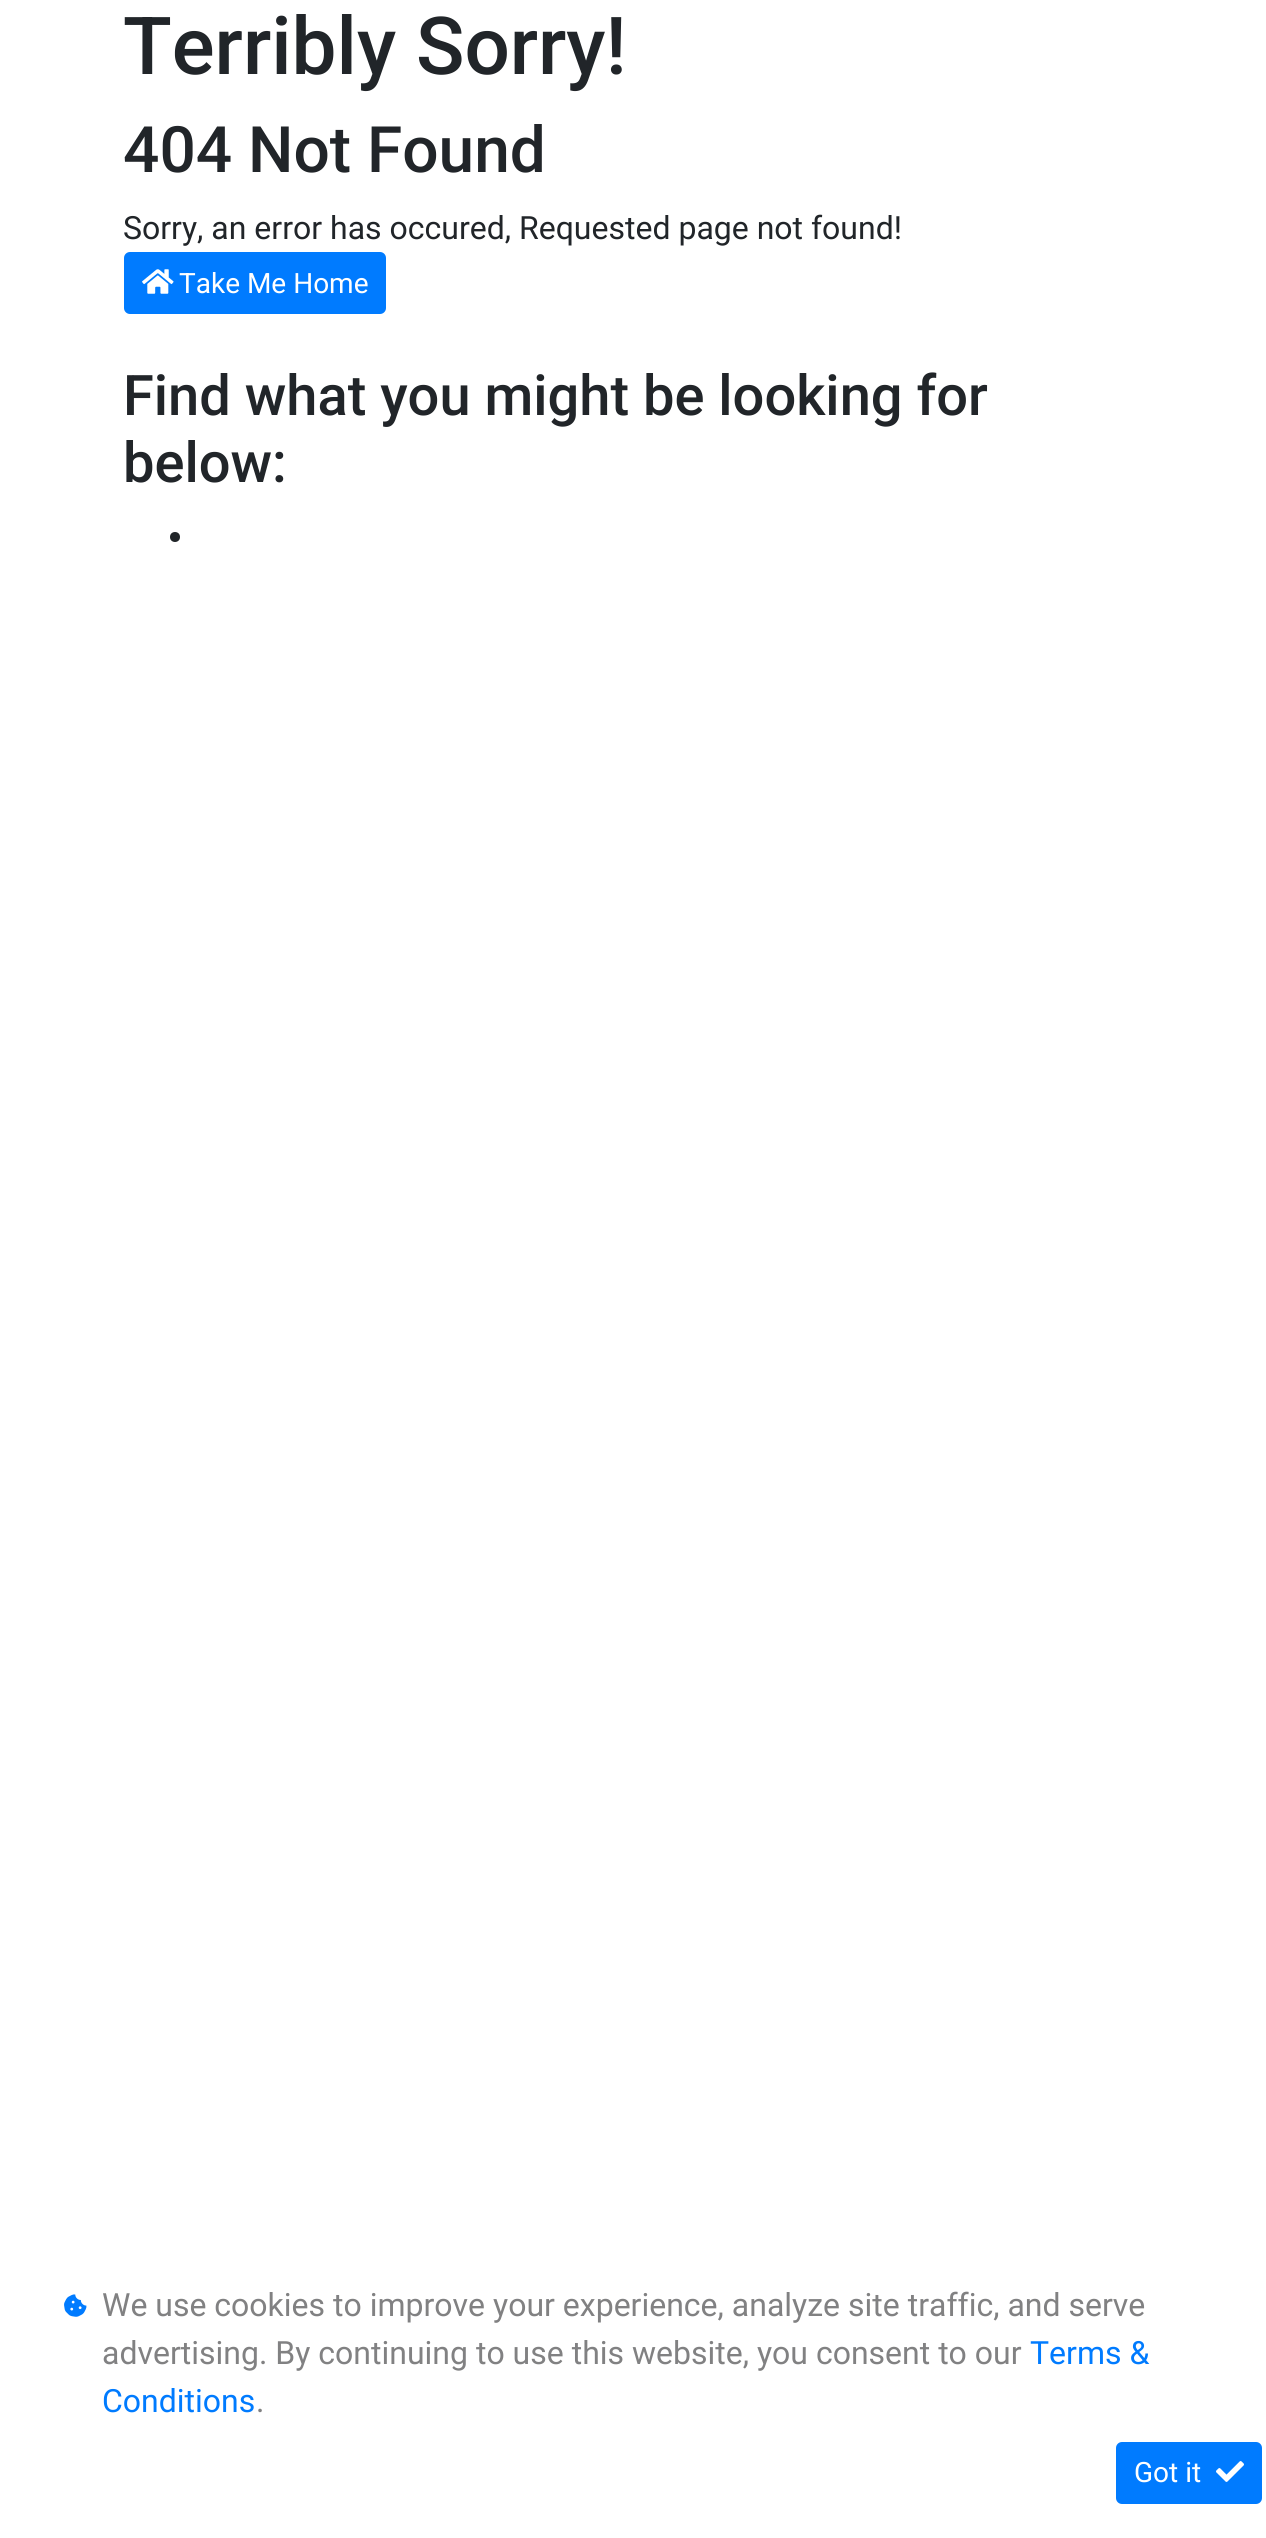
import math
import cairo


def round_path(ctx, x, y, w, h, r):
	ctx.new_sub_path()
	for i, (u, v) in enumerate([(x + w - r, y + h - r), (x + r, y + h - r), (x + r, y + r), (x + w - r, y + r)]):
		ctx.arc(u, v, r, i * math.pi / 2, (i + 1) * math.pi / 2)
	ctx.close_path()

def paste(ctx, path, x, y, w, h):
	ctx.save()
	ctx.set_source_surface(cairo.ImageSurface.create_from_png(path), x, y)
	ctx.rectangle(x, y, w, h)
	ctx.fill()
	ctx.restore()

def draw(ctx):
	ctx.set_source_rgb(1, 1, 1)
	ctx.paint()
	ctx.select_font_face('Roboto Medium')
	ctx.set_font_size(80)
	ctx.set_source_rgb(0.129, 0.145, 0.161)
	ctx.move_to(123, 74)
	ctx.show_text('Terribly Sorry!')
	ctx.set_font_size(64)
	ctx.move_to(123, 172)
	ctx.show_text('404 Not Found')
	ctx.select_font_face('Roboto')
	ctx.set_font_size(32)
	ctx.move_to(123, 239)
	ctx.show_text('Sorry, an error has occured, Requested page not found!')
	ctx.set_source_rgb(0, 0.482, 1)
	round_path(ctx, 125, 253, 260, 60, 5)
	ctx.fill_preserve()
	ctx.stroke()
	paste(ctx, 'media/1.png', 142, 269, 32, 25)
	ctx.set_font_size(28)
	ctx.set_source_rgb(1, 1, 1)
	ctx.move_to(179, 293)
	ctx.show_text('Take Me Home')
	ctx.select_font_face('Roboto Medium')
	ctx.set_font_size(56)
	ctx.set_source_rgb(0.129, 0.145, 0.161)
	ctx.move_to(123, 415)
	ctx.show_text('Find what you might be looking for')
	ctx.move_to(123, 482)
	ctx.show_text('below:')
	ctx.new_path()
	ctx.arc(175, 537, 5, 0, 2 * math.pi)
	ctx.fill()
	paste(ctx, 'media/2.png', 64, 2294, 23, 23)
	ctx.select_font_face('Roboto')
	ctx.set_font_size(32)
	ctx.set_source_rgb(0.506, 0.506, 0.51)
	ctx.move_to(102, 2316)
	ctx.show_text('We use cookies to improve your experience, analyze site traffic, and serve')
	ctx.move_to(102, 2364)
	ctx.show_text('advertising. By continuing to use this website, you consent to our')
	ctx.set_source_rgb(0, 0.482, 1)
	ctx.move_to(1030, 2364)
	ctx.show_text('Terms &')
	ctx.move_to(102, 2412)
	ctx.show_text('Conditions')
	ctx.set_source_rgb(0.506, 0.506, 0.51)
	ctx.move_to(256, 2412)
	ctx.show_text('.')
	ctx.set_source_rgb(0, 0.482, 1)
	round_path(ctx, 1117, 2443, 144, 60, 5)
	ctx.fill_preserve()
	ctx.stroke()
	ctx.set_font_size(28)
	ctx.set_source_rgb(1, 1, 1)
	ctx.move_to(1134, 2482)
	ctx.show_text('Got it')
	paste(ctx, 'media/3.png', 1216, 2461, 28, 21)


surface = cairo.ImageSurface(cairo.FORMAT_RGB24, 1266, 2538)
ctx = cairo.Context(surface)
options = cairo.FontOptions()
options.set_hint_metrics(cairo.HINT_METRICS_OFF)
options.set_hint_style(cairo.HINT_STYLE_NONE)
ctx.set_font_options(options)
ctx.set_miter_limit(4)
draw(ctx)
surface.write_to_png('image.png')
